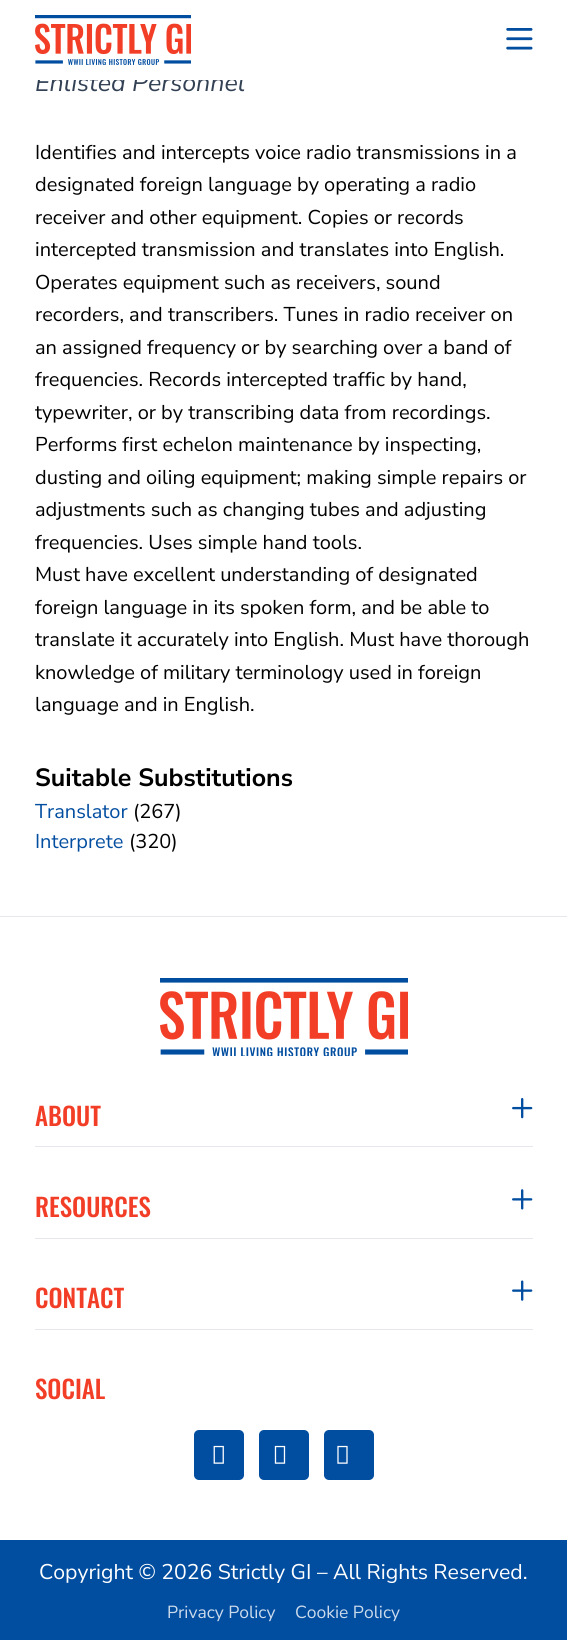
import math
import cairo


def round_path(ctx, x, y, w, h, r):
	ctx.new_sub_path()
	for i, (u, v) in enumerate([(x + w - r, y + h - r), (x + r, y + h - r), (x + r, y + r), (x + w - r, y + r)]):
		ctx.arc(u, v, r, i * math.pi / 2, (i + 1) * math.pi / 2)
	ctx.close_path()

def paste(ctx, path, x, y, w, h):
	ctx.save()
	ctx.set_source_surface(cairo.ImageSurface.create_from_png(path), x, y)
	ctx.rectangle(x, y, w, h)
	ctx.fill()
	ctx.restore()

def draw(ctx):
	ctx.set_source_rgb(1, 1, 1)
	ctx.paint()
	ctx.select_font_face('Nunito Sans', cairo.FONT_SLANT_ITALIC)
	ctx.set_font_size(25)
	ctx.set_source_rgb(0.2, 0.255, 0.333)
	ctx.move_to(35, 91)
	ctx.show_text('Enlisted Personnel')
	ctx.set_source_rgb(1, 1, 1)
	ctx.rectangle(38, 73, 206, 7)
	ctx.fill()
	paste(ctx, 'media/1.png', 35, 15, 156, 50)
	paste(ctx, 'media/2.png', 506, 28, 27, 22)
	ctx.select_font_face('Nunito Sans')
	ctx.set_font_size(20)
	ctx.set_source_rgb(0, 0, 0)
	for x, y, s in [
		(35, 159, 'Identifies and intercepts voice radio transmissions in a'),
		(35, 191, 'designated foreign language by operating a radio'),
		(35, 224, 'receiver and other equipment. Copies or records'),
		(35, 256, 'intercepted transmission and translates into English.'),
		(35, 289, 'Operates equipment such as receivers, sound'),
		(35, 321, 'recorders, and transcribers. Tunes in radio receiver on'),
		(35, 354, 'an assigned frequency or by searching over a band of'),
		(35, 386, 'frequencies. Records intercepted traffic by hand,'),
		(35, 419, 'typewriter, or by transcribing data from recordings.'),
		(35, 451, 'Performs first echelon maintenance by inspecting,'),
		(35, 484, 'dusting and oiling equipment; making simple repairs or'),
		(35, 516, 'adjustments such as changing tubes and adjusting'),
		(35, 549, 'frequencies. Uses simple hand tools.'),
		(35, 581, 'Must have excellent understanding of designated'),
		(35, 614, 'foreign language in its spoken form, and be able to'),
		(35, 646, 'translate it accurately into English. Must have thorough'),
		(35, 679, 'knowledge of military terminology used in foreign'),
		(35, 711, 'language and in English.'),
	]:
		ctx.move_to(x, y)
		ctx.show_text(s)
	ctx.select_font_face('Nunito Sans', cairo.FONT_SLANT_NORMAL, cairo.FONT_WEIGHT_BOLD)
	ctx.set_font_size(25)
	ctx.move_to(35, 786)
	ctx.show_text('Suitable Substitutions')
	ctx.select_font_face('Nunito Sans')
	ctx.set_font_size(20)
	ctx.set_source_rgb(0.004, 0.302, 0.627)
	ctx.move_to(35, 818)
	ctx.show_text('Translator')
	ctx.set_source_rgb(0, 0, 0)
	ctx.move_to(133, 818)
	ctx.show_text('(267)')
	ctx.set_source_rgb(0.004, 0.302, 0.627)
	ctx.move_to(35, 848)
	ctx.show_text('Interprete')
	ctx.set_source_rgb(0, 0, 0)
	ctx.move_to(129, 848)
	ctx.show_text('(320)')
	ctx.set_source_rgb(0.898, 0.906, 0.922)
	ctx.rectangle(0, 916, 567, 1)
	ctx.fill()
	paste(ctx, 'media/3.png', 160, 978, 248, 78)
	ctx.rectangle(35, 1146, 498, 1)
	ctx.fill()
	ctx.select_font_face('Oswald Medium')
	ctx.set_font_size(25)
	ctx.set_source_rgb(0.953, 0.243, 0.153)
	ctx.move_to(35, 1126)
	ctx.show_text('ABOUT')
	paste(ctx, 'media/4.png', 512, 1098, 21, 21)
	ctx.set_source_rgb(0.898, 0.906, 0.922)
	ctx.rectangle(35, 1238, 498, 1)
	ctx.fill()
	ctx.set_source_rgb(0.953, 0.243, 0.153)
	ctx.move_to(35, 1217)
	ctx.show_text('RESOURCES')
	paste(ctx, 'media/5.png', 512, 1189, 21, 21)
	ctx.set_source_rgb(0.898, 0.906, 0.922)
	ctx.rectangle(35, 1329, 498, 1)
	ctx.fill()
	ctx.set_source_rgb(0.953, 0.243, 0.153)
	ctx.move_to(35, 1308)
	ctx.show_text('CONTACT')
	paste(ctx, 'media/6.png', 512, 1280, 21, 21)
	ctx.move_to(35, 1399)
	ctx.show_text('SOCIAL')
	ctx.set_source_rgb(0.004, 0.302, 0.627)
	round_path(ctx, 194, 1430, 50, 50, 5)
	ctx.fill()
	paste(ctx, 'media/7.png', 213, 1445, 11, 19)
	round_path(ctx, 259, 1430, 50, 50, 5)
	ctx.fill()
	paste(ctx, 'media/8.png', 274, 1445, 12, 19)
	round_path(ctx, 324, 1430, 50, 50, 5)
	ctx.fill()
	paste(ctx, 'media/9.png', 337, 1445, 11, 19)
	ctx.rectangle(0, 1540, 567, 100)
	ctx.fill()
	ctx.select_font_face('Nunito Sans')
	ctx.set_font_size(21.25)
	ctx.set_source_rgb(1, 1, 1)
	ctx.move_to(39, 1579)
	ctx.show_text('Copyright © 2026 Strictly GI – All Rights Reserved.')
	ctx.set_font_size(17.5)
	ctx.set_source_rgb(0.8, 0.859, 0.925)
	ctx.move_to(167, 1618)
	ctx.show_text('Privacy Policy')
	ctx.move_to(295, 1618)
	ctx.show_text('Cookie Policy')


surface = cairo.ImageSurface(cairo.FORMAT_RGB24, 567, 1640)
ctx = cairo.Context(surface)
options = cairo.FontOptions()
options.set_hint_metrics(cairo.HINT_METRICS_OFF)
options.set_hint_style(cairo.HINT_STYLE_NONE)
ctx.set_font_options(options)
ctx.set_miter_limit(4)
draw(ctx)
surface.write_to_png('image.png')
